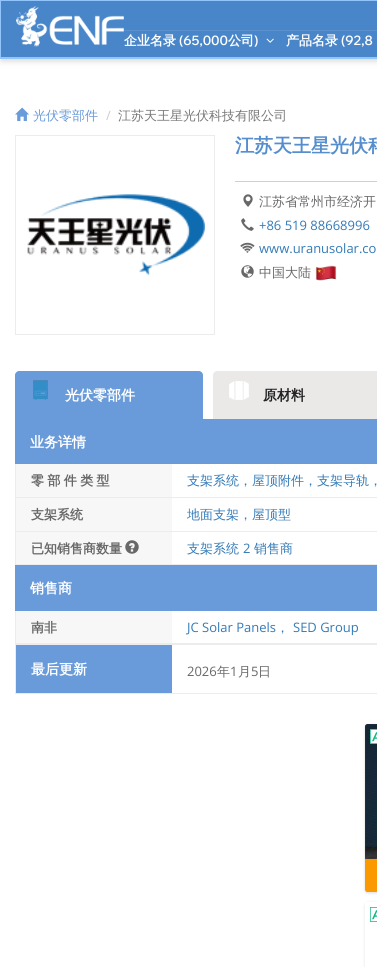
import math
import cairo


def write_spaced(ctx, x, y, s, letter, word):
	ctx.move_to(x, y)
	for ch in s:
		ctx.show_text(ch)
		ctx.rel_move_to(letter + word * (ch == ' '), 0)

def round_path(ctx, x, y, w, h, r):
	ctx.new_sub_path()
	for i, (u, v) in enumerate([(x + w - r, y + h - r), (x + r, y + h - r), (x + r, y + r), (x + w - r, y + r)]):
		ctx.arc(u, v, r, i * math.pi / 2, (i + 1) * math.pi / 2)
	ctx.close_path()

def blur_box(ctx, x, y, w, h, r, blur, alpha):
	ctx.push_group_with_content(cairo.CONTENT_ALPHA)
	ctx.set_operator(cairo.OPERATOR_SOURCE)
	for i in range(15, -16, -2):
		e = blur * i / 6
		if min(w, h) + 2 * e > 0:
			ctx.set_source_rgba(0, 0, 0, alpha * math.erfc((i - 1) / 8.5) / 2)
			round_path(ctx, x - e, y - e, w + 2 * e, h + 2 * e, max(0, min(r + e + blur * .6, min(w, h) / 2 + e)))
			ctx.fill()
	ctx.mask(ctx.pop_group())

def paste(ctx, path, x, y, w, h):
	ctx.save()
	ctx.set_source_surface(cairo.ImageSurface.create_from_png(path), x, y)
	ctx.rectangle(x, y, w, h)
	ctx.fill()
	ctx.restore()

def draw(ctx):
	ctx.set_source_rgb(1, 1, 1)
	ctx.paint()
	ctx.set_source_rgb(0, 0, 0)
	blur_box(ctx, 1, 3, 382, 57, 0, 2, 0.06)
	blur_box(ctx, 1, 5, 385, 57, 0, 3, 0.1)
	ctx.set_source_rgb(0.286, 0.525, 0.788)
	ctx.rectangle(1, 1, 376, 56)
	ctx.fill()
	ctx.set_source_rgb(0.576, 0.773, 0.992)
	ctx.rectangle(0, 0, 377, 1)
	ctx.rectangle(0, 57, 377, 2)
	ctx.rectangle(0, 0, 1, 59)
	ctx.fill()
	paste(ctx, 'media/1.png', 16, 6, 108, 41)
	ctx.set_source_rgba(1, 1, 1, 0.1)
	ctx.rectangle(123, 30, 254, 1)
	ctx.fill()
	ctx.select_font_face('WenQuanYi Zen Hei', cairo.FONT_SLANT_NORMAL, cairo.FONT_WEIGHT_BOLD)
	ctx.set_font_size(13)
	ctx.set_source_rgb(1, 1, 1)
	ctx.move_to(124, 45)
	ctx.show_text('企业名录')
	ctx.select_font_face('Wix Madefor Display SemiBold')
	ctx.move_to(179, 45)
	ctx.show_text('(65,000')
	ctx.select_font_face('WenQuanYi Zen Hei', cairo.FONT_SLANT_NORMAL, cairo.FONT_WEIGHT_BOLD)
	ctx.move_to(228, 45)
	ctx.show_text('公司')
	ctx.select_font_face('Wix Madefor Display SemiBold')
	ctx.move_to(254, 45)
	ctx.show_text(')')
	paste(ctx, 'media/2.png', 266, 38, 8, 5)
	ctx.select_font_face('WenQuanYi Zen Hei', cairo.FONT_SLANT_NORMAL, cairo.FONT_WEIGHT_BOLD)
	ctx.move_to(286, 45)
	ctx.show_text('产品名录')
	ctx.select_font_face('Wix Madefor Display SemiBold')
	ctx.move_to(341, 45)
	ctx.show_text('(92,8')
	paste(ctx, 'media/3.png', 15, 107, 14, 14)
	ctx.select_font_face('WenQuanYi Zen Hei Medium')
	ctx.set_source_rgb(0.412, 0.604, 0.855)
	ctx.move_to(33, 120)
	ctx.show_text('光伏零部件')
	ctx.select_font_face('Open Sans')
	ctx.set_source_rgb(0.8, 0.8, 0.8)
	ctx.move_to(106, 120)
	ctx.show_text('/')
	ctx.select_font_face('WenQuanYi Zen Hei Medium')
	ctx.set_source_rgb(0.467, 0.467, 0.467)
	ctx.move_to(118, 120)
	ctx.show_text('江苏天王星光伏科技有限公司')
	ctx.rectangle(15.5, 135.5, 199, 199)
	ctx.set_source_rgb(0.925, 0.925, 0.925)
	ctx.set_line_width(1)
	ctx.stroke()
	paste(ctx, 'media/4.png', 27, 194, 178, 81)
	ctx.select_font_face('WenQuanYi Zen Hei', cairo.FONT_SLANT_NORMAL, cairo.FONT_WEIGHT_BOLD)
	ctx.set_font_size(19)
	ctx.set_source_rgb(0.329, 0.557, 0.808)
	ctx.move_to(235, 152)
	ctx.show_text('江苏天王星光伏科')
	ctx.set_source_rgb(0.816, 0.816, 0.816)
	ctx.rectangle(235, 181, 142, 1)
	ctx.fill()
	paste(ctx, 'media/5.png', 243, 194, 10, 13)
	ctx.select_font_face('WenQuanYi Zen Hei Medium')
	ctx.set_font_size(13)
	ctx.set_source_rgb(0.408, 0.408, 0.408)
	ctx.move_to(259, 206)
	ctx.show_text('江苏省常州市经济开')
	paste(ctx, 'media/6.png', 241, 218, 13, 13)
	ctx.select_font_face('Open Sans')
	ctx.set_source_rgb(0.2, 0.478, 0.718)
	ctx.move_to(259, 230)
	ctx.show_text('+86 519 88668996')
	paste(ctx, 'media/7.png', 240, 242, 15, 11)
	ctx.move_to(259, 253)
	ctx.show_text('www.uranusolar.co')
	paste(ctx, 'media/8.png', 241, 265, 13, 13)
	ctx.select_font_face('WenQuanYi Zen Hei Medium')
	ctx.set_source_rgb(0.408, 0.408, 0.408)
	ctx.move_to(259, 277)
	ctx.show_text('中国大陆')
	paste(ctx, 'media/9.png', 315, 265, 22, 16)
	ctx.set_source_rgb(0.925, 0.925, 0.925)
	ctx.rectangle(15, 643, 362, 2)
	ctx.fill()
	ctx.set_source_rgb(0.412, 0.608, 0.855)
	ctx.new_path()
	ctx.move_to(19, 371)
	ctx.line_to(199, 371)
	ctx.curve_to(201, 371, 203, 373, 203, 375)
	ctx.line_to(203, 419)
	ctx.line_to(15, 419)
	ctx.line_to(15, 375)
	ctx.curve_to(15, 373, 17, 371, 19, 371)
	ctx.close_path()
	ctx.fill()
	paste(ctx, 'media/10.png', 33, 380, 15, 20)
	ctx.select_font_face('WenQuanYi Zen Hei', cairo.FONT_SLANT_NORMAL, cairo.FONT_WEIGHT_BOLD)
	ctx.set_font_size(14)
	ctx.set_source_rgb(1, 1, 1)
	ctx.move_to(65, 400)
	ctx.show_text('光伏零部件')
	ctx.set_source_rgb(0.918, 0.91, 0.91)
	ctx.new_path()
	ctx.move_to(217, 371)
	ctx.line_to(377, 371)
	ctx.curve_to(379, 371, 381, 373, 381, 375)
	ctx.line_to(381, 419)
	ctx.line_to(213, 419)
	ctx.line_to(213, 375)
	ctx.curve_to(213, 373, 215, 371, 217, 371)
	ctx.close_path()
	ctx.fill()
	paste(ctx, 'media/11.png', 229, 381, 20, 19)
	ctx.set_source_rgb(0.133, 0.133, 0.133)
	ctx.move_to(263, 400)
	ctx.show_text('原材料')
	ctx.set_source_rgb(0.925, 0.925, 0.925)
	ctx.rectangle(15, 564, 362, 1)
	ctx.fill()
	ctx.set_source_rgb(0.412, 0.604, 0.855)
	ctx.rectangle(15, 419, 362, 45)
	ctx.fill()
	ctx.set_source_rgb(1, 1, 1)
	ctx.move_to(30, 447)
	ctx.show_text('业务详情')
	ctx.set_source_rgb(0.925, 0.925, 0.925)
	ctx.rectangle(15, 464, 1, 100)
	ctx.fill()
	ctx.set_source_rgb(0.965, 0.965, 0.965)
	ctx.rectangle(16, 464, 156, 33)
	ctx.fill()
	ctx.set_font_size(13)
	ctx.set_source_rgb(0.408, 0.408, 0.408)
	write_spaced(ctx, 31, 485, '零 部 件 类 型', 0, -0.5)
	ctx.select_font_face('WenQuanYi Zen Hei Medium')
	ctx.set_source_rgb(0.2, 0.478, 0.718)
	ctx.move_to(187, 485)
	ctx.show_text('支架系统，屋顶附件，支架导轨，')
	ctx.set_source_rgb(0.925, 0.925, 0.925)
	ctx.rectangle(16, 497, 361, 1)
	ctx.fill()
	ctx.set_source_rgb(0.965, 0.965, 0.965)
	ctx.rectangle(16, 498, 156, 33)
	ctx.fill()
	ctx.select_font_face('WenQuanYi Zen Hei', cairo.FONT_SLANT_NORMAL, cairo.FONT_WEIGHT_BOLD)
	ctx.set_source_rgb(0.408, 0.408, 0.408)
	ctx.move_to(31, 519)
	ctx.show_text('支架系统')
	ctx.select_font_face('WenQuanYi Zen Hei Medium')
	ctx.set_source_rgb(0.2, 0.478, 0.718)
	ctx.move_to(187, 519)
	ctx.show_text('地面支架，屋顶型')
	ctx.set_source_rgb(0.925, 0.925, 0.925)
	ctx.rectangle(16, 531, 361, 1)
	ctx.fill()
	ctx.set_source_rgb(0.965, 0.965, 0.965)
	ctx.rectangle(16, 532, 156, 32)
	ctx.fill()
	ctx.select_font_face('WenQuanYi Zen Hei', cairo.FONT_SLANT_NORMAL, cairo.FONT_WEIGHT_BOLD)
	ctx.set_source_rgb(0.408, 0.408, 0.408)
	ctx.move_to(31, 553)
	ctx.show_text('已知销售商数量')
	paste(ctx, 'media/12.png', 125, 540, 14, 14)
	ctx.select_font_face('WenQuanYi Zen Hei Medium')
	ctx.set_source_rgb(0.2, 0.478, 0.718)
	ctx.move_to(187, 553)
	ctx.show_text('支架系统')
	ctx.select_font_face('Open Sans')
	ctx.move_to(243, 553)
	ctx.show_text('2')
	ctx.select_font_face('WenQuanYi Zen Hei Medium')
	ctx.move_to(254, 553)
	ctx.show_text('销售商')
	ctx.set_source_rgb(0.412, 0.604, 0.855)
	ctx.rectangle(15, 565, 362, 46)
	ctx.fill()
	ctx.select_font_face('WenQuanYi Zen Hei', cairo.FONT_SLANT_NORMAL, cairo.FONT_WEIGHT_BOLD)
	ctx.set_font_size(14)
	ctx.set_source_rgb(1, 1, 1)
	ctx.move_to(30, 593)
	ctx.show_text('销售商')
	ctx.set_source_rgb(0.925, 0.925, 0.925)
	ctx.rectangle(15, 611, 1, 32)
	ctx.fill()
	ctx.set_source_rgb(0.965, 0.965, 0.965)
	ctx.rectangle(16, 611, 156, 32)
	ctx.fill()
	ctx.set_font_size(13)
	ctx.set_source_rgb(0.408, 0.408, 0.408)
	ctx.move_to(31, 632)
	ctx.show_text('南非')
	ctx.select_font_face('Open Sans')
	ctx.set_source_rgb(0.2, 0.478, 0.718)
	ctx.move_to(187, 632)
	ctx.show_text('JC Solar Panels')
	ctx.select_font_face('WenQuanYi Zen Hei Medium')
	ctx.move_to(276, 632)
	ctx.show_text('，')
	ctx.select_font_face('Open Sans')
	ctx.move_to(293, 632)
	ctx.show_text('SED Group')
	ctx.set_source_rgb(0.925, 0.925, 0.925)
	ctx.rectangle(15, 693, 362, 1)
	ctx.rectangle(15, 645, 1, 48)
	ctx.fill()
	ctx.set_source_rgb(0.412, 0.604, 0.855)
	ctx.rectangle(16, 645, 156, 48)
	ctx.fill()
	ctx.select_font_face('WenQuanYi Zen Hei', cairo.FONT_SLANT_NORMAL, cairo.FONT_WEIGHT_BOLD)
	ctx.set_font_size(14)
	ctx.set_source_rgb(1, 1, 1)
	ctx.move_to(31, 674)
	ctx.show_text('最后更新')
	ctx.select_font_face('Open Sans')
	ctx.set_font_size(13)
	ctx.set_source_rgb(0.408, 0.408, 0.408)
	ctx.move_to(187, 676)
	ctx.show_text('2026')
	ctx.select_font_face('WenQuanYi Zen Hei Medium')
	ctx.move_to(217, 676)
	ctx.show_text('年')
	ctx.select_font_face('Open Sans')
	ctx.move_to(230, 676)
	ctx.show_text('1')
	ctx.select_font_face('WenQuanYi Zen Hei Medium')
	ctx.move_to(238, 676)
	ctx.show_text('月')
	ctx.select_font_face('Open Sans')
	ctx.move_to(251, 676)
	ctx.show_text('5')
	ctx.select_font_face('WenQuanYi Zen Hei Medium')
	ctx.move_to(258, 676)
	ctx.show_text('日')
	ctx.set_source_rgb(0, 0, 0)
	blur_box(ctx, 365, 725, 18, 168, 2.5, 1, 0.06)
	blur_box(ctx, 365, 725, 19, 168, 2.5, 1.5, 0.1)
	paste(ctx, 'media/13.png', 365, 724, 12, 135)
	ctx.set_source_rgb(1, 1, 1)
	ctx.rectangle(370, 729, 7, 15)
	ctx.fill()
	paste(ctx, 'media/14.png', 370, 729, 7, 15)
	ctx.set_source_rgb(0.984, 0.6, 0)
	ctx.new_path()
	ctx.move_to(365, 859)
	ctx.line_to(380, 859)
	ctx.line_to(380, 889.5)
	ctx.curve_to(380, 891, 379, 892, 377.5, 892)
	ctx.line_to(367.5, 892)
	ctx.curve_to(366, 892, 365, 891, 365, 889.5)
	ctx.close_path()
	ctx.fill()
	ctx.set_source_rgb(0, 0, 0)
	blur_box(ctx, 365, 903, 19, 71, 2.5, 1.5, 0.1)
	ctx.set_source_rgb(1, 1, 1)
	round_path(ctx, 365, 902, 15, 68, 2.5)
	ctx.fill()
	paste(ctx, 'media/14.png', 370, 907, 7, 15)


surface = cairo.ImageSurface(cairo.FORMAT_RGB24, 377, 967)
ctx = cairo.Context(surface)
options = cairo.FontOptions()
options.set_hint_metrics(cairo.HINT_METRICS_OFF)
options.set_hint_style(cairo.HINT_STYLE_NONE)
ctx.set_font_options(options)
ctx.set_miter_limit(4)
draw(ctx)
surface.write_to_png('image.png')
